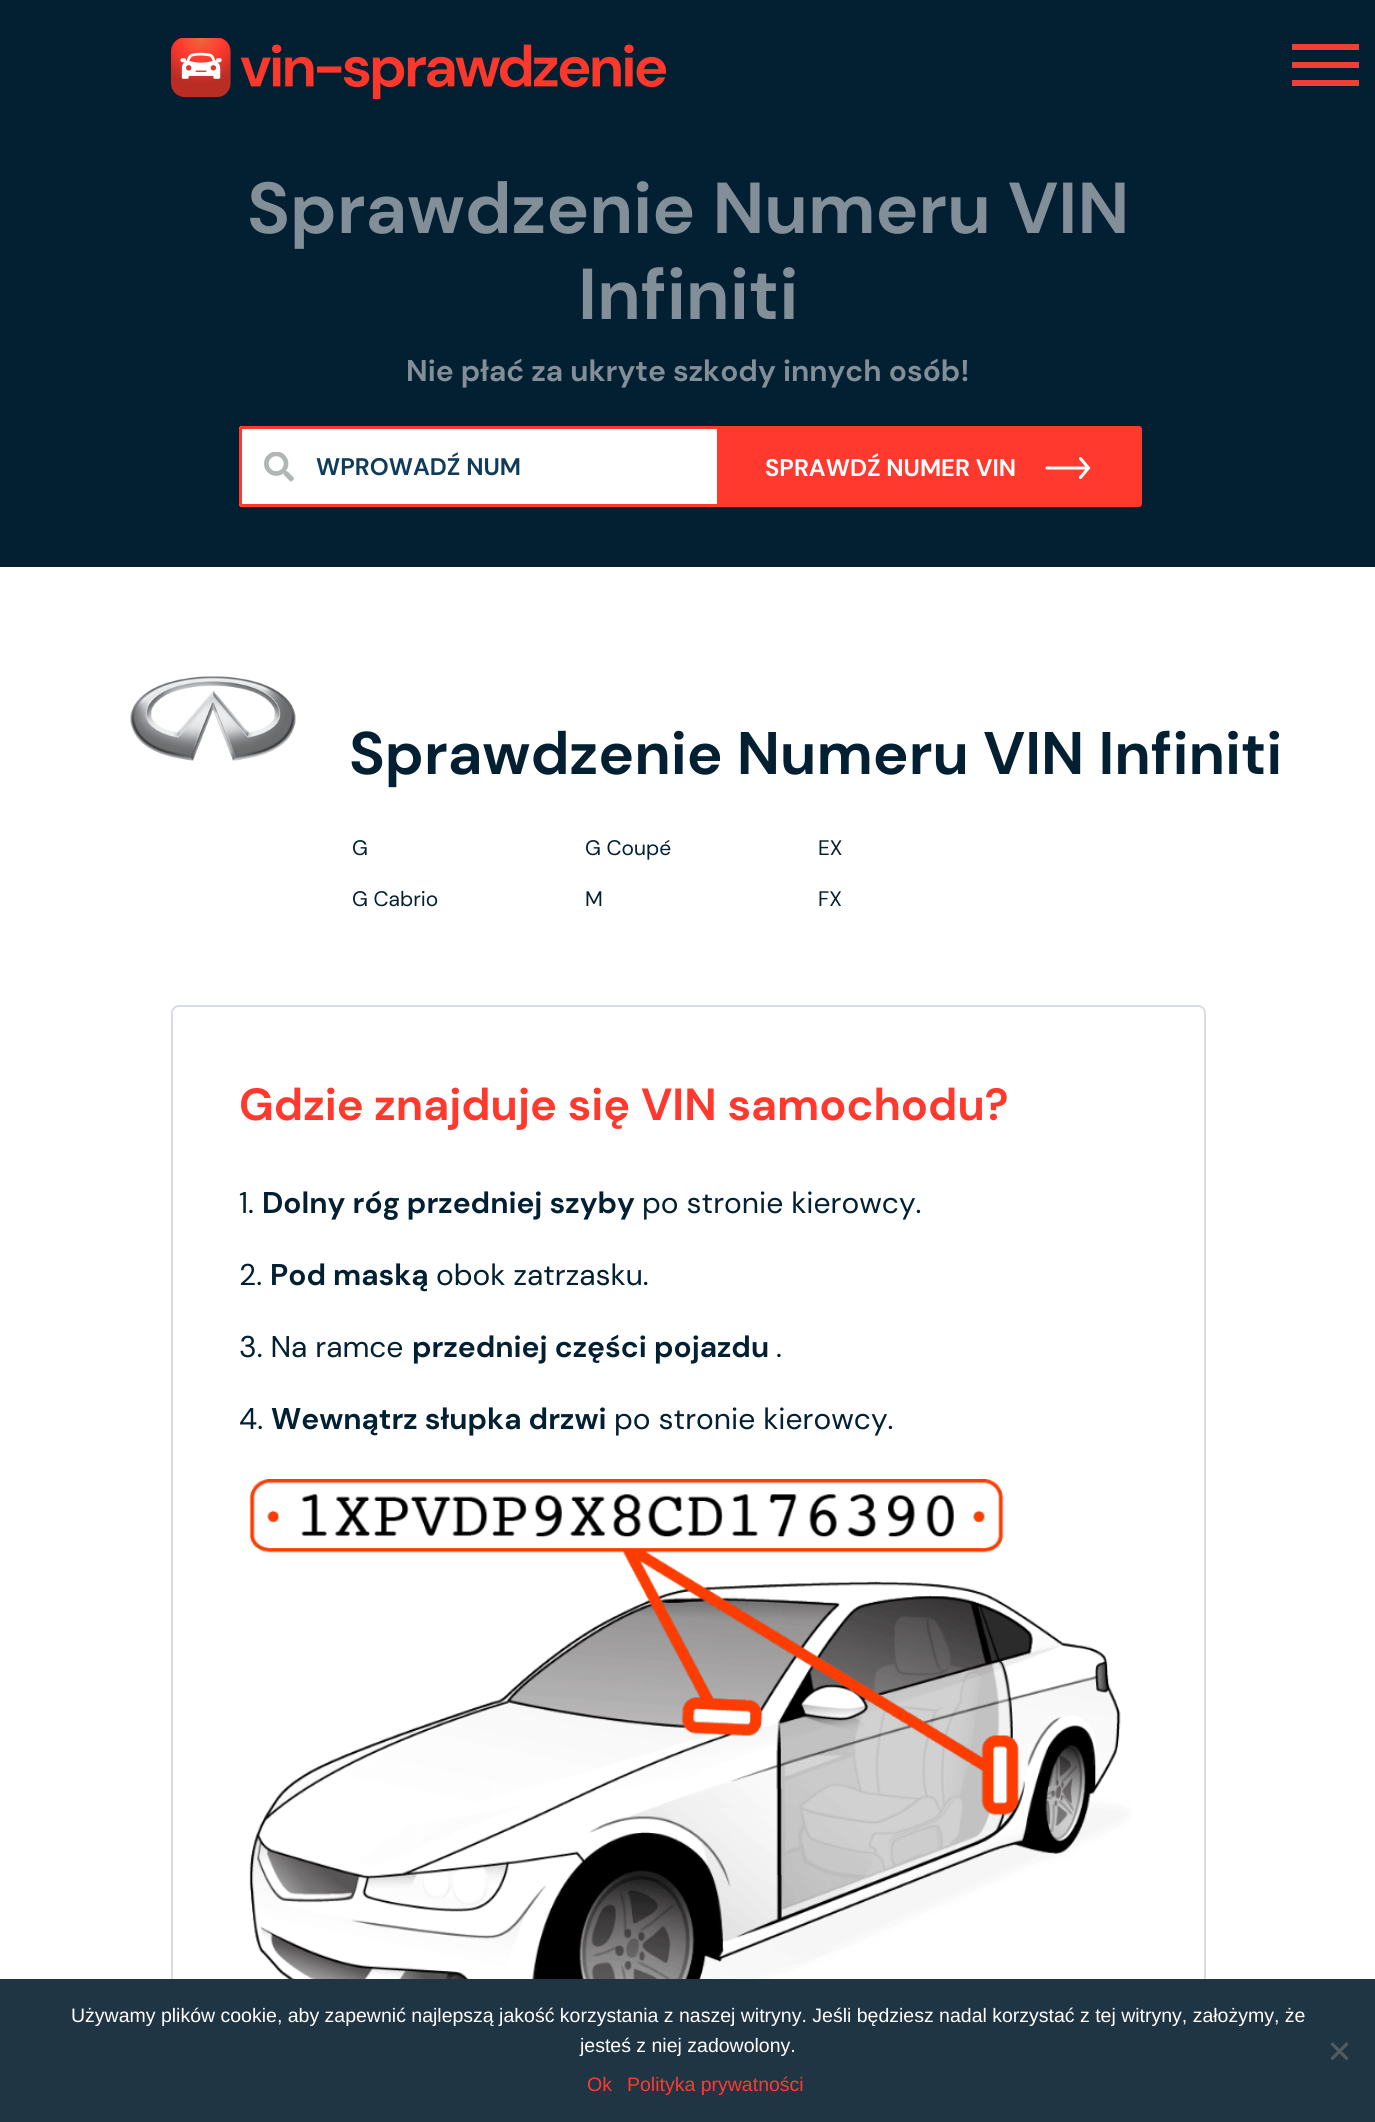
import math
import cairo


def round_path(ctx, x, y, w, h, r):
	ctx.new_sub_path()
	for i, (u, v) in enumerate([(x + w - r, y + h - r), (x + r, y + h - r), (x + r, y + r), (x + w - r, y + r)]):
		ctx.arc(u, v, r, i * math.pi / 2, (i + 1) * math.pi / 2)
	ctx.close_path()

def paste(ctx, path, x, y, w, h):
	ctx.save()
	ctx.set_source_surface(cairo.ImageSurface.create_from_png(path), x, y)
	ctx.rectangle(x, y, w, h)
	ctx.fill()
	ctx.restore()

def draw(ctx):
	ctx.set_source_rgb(1, 1, 1)
	ctx.paint()
	ctx.set_source_rgb(0.012, 0.125, 0.2)
	ctx.rectangle(0, 0, 1375, 567)
	ctx.fill()
	paste(ctx, 'media/1.png', 171, 38, 495, 61)
	ctx.set_source_rgb(0.933, 0.251, 0.212)
	ctx.rectangle(1292, 44, 67, 6)
	ctx.rectangle(1292, 62, 67, 6)
	ctx.rectangle(1292, 80, 67, 6)
	ctx.fill()
	ctx.select_font_face('DM Sans', cairo.FONT_SLANT_NORMAL, cairo.FONT_WEIGHT_BOLD)
	ctx.set_font_size(72)
	ctx.set_source_rgb(0.514, 0.561, 0.596)
	ctx.move_to(247, 233)
	ctx.show_text('Sprawdzenie Numeru VIN')
	ctx.move_to(578, 319)
	ctx.show_text('Infiniti')
	ctx.set_font_size(30)
	ctx.move_to(406, 381)
	ctx.show_text('Nie płać za ukryte szkody innych osób!')
	ctx.set_source_rgb(1, 1, 1)
	round_path(ctx, 239, 426, 900, 81, 3)
	ctx.fill()
	paste(ctx, 'media/2.png', 264, 452, 30, 30)
	round_path(ctx, 240.5, 427.5, 897, 78, 1.5)
	ctx.set_source_rgb(1, 0.224, 0.18)
	ctx.set_line_width(3)
	ctx.stroke()
	ctx.set_font_size(24)
	ctx.set_source_rgb(0.059, 0.235, 0.353)
	ctx.move_to(316, 475)
	ctx.show_text('WPROWADŹ NUM')
	ctx.set_source_rgb(1, 0.224, 0.18)
	round_path(ctx, 717, 426, 425, 81, 3)
	ctx.fill()
	ctx.set_source_rgb(1, 1, 1)
	ctx.move_to(765, 476)
	ctx.show_text('SPRAWDŹ NUMER VIN')
	ctx.new_path()
	ctx.move_to(1080.5, 477.5)
	ctx.line_to(1088.5, 468)
	ctx.line_to(1080.5, 458.5)
	ctx.move_to(1087.5, 468)
	ctx.line_to(1047, 468)
	ctx.set_line_cap(cairo.LINE_CAP_ROUND)
	ctx.stroke()
	paste(ctx, 'media/3.png', 130, 676, 166, 85)
	ctx.set_font_size(60)
	ctx.set_source_rgb(0.012, 0.125, 0.2)
	ctx.move_to(349, 774)
	ctx.show_text('Sprawdzenie Numeru VIN Infiniti')
	ctx.select_font_face('DM Sans')
	ctx.set_font_size(21)
	for x, y, s in [
		(352, 855, 'G'),
		(352, 906, 'G Cabrio'),
		(585, 855, 'G Coupé'),
		(585, 906, 'M'),
		(818, 855, 'EX'),
		(818, 906, 'FX'),
	]:
		ctx.move_to(x, y)
		ctx.show_text(s)
	round_path(ctx, 172, 1006, 1033, 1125, 7)
	ctx.set_source_rgb(0.851, 0.863, 0.886)
	ctx.set_line_width(2)
	ctx.set_line_cap(cairo.LINE_CAP_BUTT)
	ctx.stroke()
	ctx.select_font_face('DM Sans', cairo.FONT_SLANT_NORMAL, cairo.FONT_WEIGHT_BOLD)
	ctx.set_font_size(45)
	ctx.set_source_rgb(1, 0.224, 0.18)
	ctx.move_to(239, 1120)
	ctx.show_text('Gdzie znajduje się VIN samochodu?')
	ctx.select_font_face('DM Sans')
	ctx.set_font_size(30)
	ctx.set_source_rgb(0.012, 0.125, 0.2)
	ctx.move_to(239, 1213)
	ctx.show_text('1.')
	ctx.select_font_face('DM Sans', cairo.FONT_SLANT_NORMAL, cairo.FONT_WEIGHT_BOLD)
	ctx.move_to(262, 1213)
	ctx.show_text('Dolny róg przedniej szyby')
	ctx.select_font_face('DM Sans')
	ctx.move_to(642, 1213)
	ctx.show_text('po stronie kierowcy.')
	ctx.move_to(239, 1285)
	ctx.show_text('2.')
	ctx.select_font_face('DM Sans', cairo.FONT_SLANT_NORMAL, cairo.FONT_WEIGHT_BOLD)
	ctx.move_to(270, 1285)
	ctx.show_text('Pod maską')
	ctx.select_font_face('DM Sans')
	ctx.move_to(436, 1285)
	ctx.show_text('obok zatrzasku.')
	ctx.move_to(239, 1357)
	ctx.show_text('3. Na ramce')
	ctx.select_font_face('DM Sans', cairo.FONT_SLANT_NORMAL, cairo.FONT_WEIGHT_BOLD)
	ctx.move_to(412, 1357)
	ctx.show_text('przedniej części pojazdu')
	ctx.select_font_face('DM Sans')
	ctx.move_to(776, 1357)
	ctx.show_text('.')
	ctx.move_to(239, 1429)
	ctx.show_text('4.')
	ctx.select_font_face('DM Sans', cairo.FONT_SLANT_NORMAL, cairo.FONT_WEIGHT_BOLD)
	ctx.move_to(271, 1429)
	ctx.show_text('Wewnątrz słupka drzwi')
	ctx.select_font_face('DM Sans')
	ctx.move_to(614, 1429)
	ctx.show_text('po stronie kierowcy.')
	paste(ctx, 'media/4.png', 249, 1479, 882, 500)
	ctx.set_source_rgb(0.125, 0.208, 0.263)
	ctx.rectangle(0, 1979, 1375, 143)
	ctx.fill()
	ctx.select_font_face('Liberation Sans')
	ctx.set_font_size(19.5)
	ctx.set_source_rgb(1, 1, 1)
	ctx.move_to(71, 2022)
	ctx.show_text('Używamy plików cookie, aby zapewnić najlepszą jakość korzystania z naszej witryny. Jeśli będziesz nadal korzystać z tej witryny, założymy, że')
	ctx.move_to(580, 2052)
	ctx.show_text('jesteś z niej zadowolony.')
	ctx.set_source_rgb(0.314, 0.357, 0.384)
	ctx.new_path()
	ctx.move_to(1346.5, 2042)
	ctx.line_to(1348.5, 2044.5)
	ctx.line_to(1332.5, 2060.5)
	ctx.line_to(1330.5, 2058)
	ctx.close_path()
	ctx.fill()
	ctx.new_path()
	ctx.move_to(1330.5, 2044.5)
	ctx.line_to(1332.5, 2042)
	ctx.line_to(1348.5, 2058)
	ctx.line_to(1346.5, 2060.5)
	ctx.close_path()
	ctx.fill()
	ctx.set_source_rgb(1, 0.224, 0.18)
	ctx.move_to(587, 2091)
	ctx.show_text('Ok')
	ctx.move_to(627, 2091)
	ctx.show_text('Polityka prywatności')


surface = cairo.ImageSurface(cairo.FORMAT_RGB24, 1375, 2122)
ctx = cairo.Context(surface)
options = cairo.FontOptions()
options.set_hint_metrics(cairo.HINT_METRICS_OFF)
options.set_hint_style(cairo.HINT_STYLE_NONE)
ctx.set_font_options(options)
ctx.set_miter_limit(4)
draw(ctx)
surface.write_to_png('image.png')
